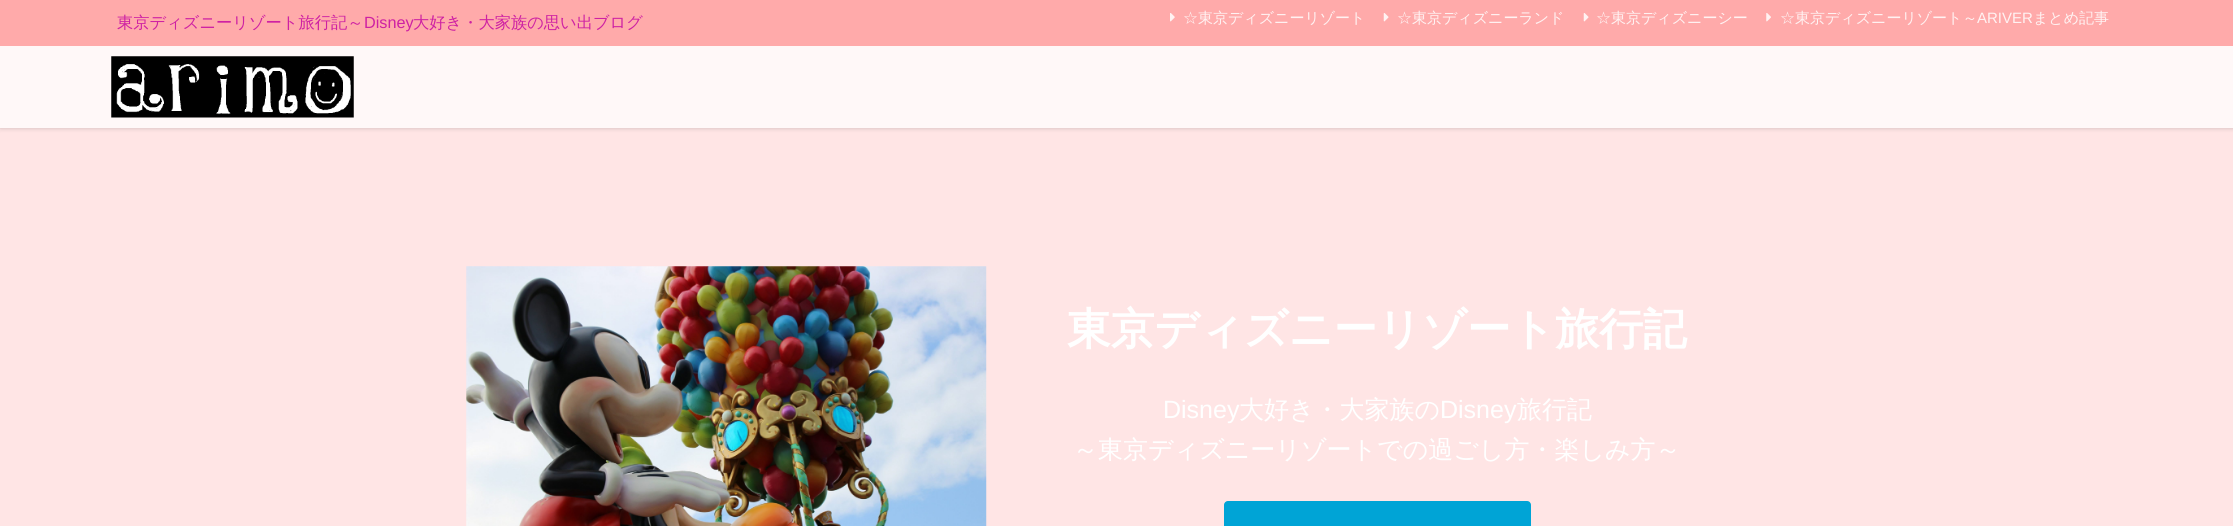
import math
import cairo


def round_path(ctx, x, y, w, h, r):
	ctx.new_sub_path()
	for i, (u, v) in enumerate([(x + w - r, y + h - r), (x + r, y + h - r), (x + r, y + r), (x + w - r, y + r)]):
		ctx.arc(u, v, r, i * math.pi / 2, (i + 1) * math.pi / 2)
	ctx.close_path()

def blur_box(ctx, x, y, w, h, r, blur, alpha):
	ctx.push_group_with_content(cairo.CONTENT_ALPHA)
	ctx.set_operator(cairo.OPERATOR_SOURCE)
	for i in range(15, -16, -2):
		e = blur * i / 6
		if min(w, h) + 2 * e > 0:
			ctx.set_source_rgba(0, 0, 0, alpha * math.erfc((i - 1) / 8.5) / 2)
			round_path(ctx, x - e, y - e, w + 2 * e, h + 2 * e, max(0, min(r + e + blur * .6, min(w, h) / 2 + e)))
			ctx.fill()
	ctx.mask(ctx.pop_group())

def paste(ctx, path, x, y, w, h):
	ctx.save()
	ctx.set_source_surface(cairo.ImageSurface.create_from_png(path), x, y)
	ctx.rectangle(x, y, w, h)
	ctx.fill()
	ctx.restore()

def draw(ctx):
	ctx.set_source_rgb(1, 0.898, 0.898)
	ctx.paint()
	ctx.set_source_rgb(0, 0, 0)
	blur_box(ctx, 0, 0, 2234, 128, 0, 2.5, 0.2)
	ctx.set_source_rgb(1, 0.969, 0.969)
	ctx.rectangle(0, 46, 2233, 82)
	ctx.fill()
	ctx.set_source_rgb(1, 0.667, 0.667)
	ctx.rectangle(0, 0, 2233, 46)
	ctx.fill()
	ctx.select_font_face('WenQuanYi Zen Hei Medium')
	ctx.set_font_size(16.25)
	ctx.set_source_rgb(0.808, 0.129, 0.639)
	ctx.move_to(117, 28)
	ctx.show_text('東京ディズニーリゾート旅行記～')
	ctx.select_font_face('Liberation Sans')
	ctx.move_to(364, 28)
	ctx.show_text('Disney')
	ctx.select_font_face('WenQuanYi Zen Hei Medium')
	ctx.move_to(413, 28)
	ctx.show_text('大好き・大家族の思い出ブログ')
	paste(ctx, 'media/1.png', 1170, 13, 5, 9)
	ctx.set_font_size(15)
	ctx.set_source_rgb(1, 0.949, 0.949)
	ctx.move_to(1183, 23)
	ctx.show_text('☆東京ディズニーリゾート')
	paste(ctx, 'media/2.png', 1383, 13, 6, 9)
	ctx.move_to(1397, 23)
	ctx.show_text('☆東京ディズニーランド')
	paste(ctx, 'media/2.png', 1583, 13, 6, 9)
	ctx.move_to(1596, 23)
	ctx.show_text('☆東京ディズニーシー')
	paste(ctx, 'media/3.png', 1766, 13, 5, 9)
	ctx.move_to(1780, 23)
	ctx.show_text('☆東京ディズニーリゾート～')
	ctx.select_font_face('Liberation Sans')
	ctx.move_to(1977, 23)
	ctx.show_text('ARIVER')
	ctx.select_font_face('WenQuanYi Zen Hei Medium')
	ctx.move_to(2033, 23)
	ctx.show_text('まとめ記事')
	paste(ctx, 'media/4.png', 111, 56, 243, 62)
	paste(ctx, 'media/5.png', 466, 266, 521, 260)
	ctx.select_font_face('WenQuanYi Zen Hei', cairo.FONT_SLANT_NORMAL, cairo.FONT_WEIGHT_BOLD)
	ctx.set_font_size(43.75)
	ctx.set_source_rgb(1, 1, 1)
	ctx.move_to(1067, 344)
	ctx.show_text('東京ディズニーリゾート旅行記')
	ctx.select_font_face('Liberation Sans')
	ctx.set_font_size(25)
	ctx.move_to(1163, 418)
	ctx.show_text('Disney')
	ctx.select_font_face('WenQuanYi Zen Hei Medium')
	ctx.move_to(1239, 418)
	ctx.show_text('大好き・大家族の')
	ctx.select_font_face('Liberation Sans')
	ctx.move_to(1440, 418)
	ctx.show_text('Disney')
	ctx.select_font_face('WenQuanYi Zen Hei Medium')
	ctx.move_to(1517, 418)
	ctx.show_text('旅行記')
	ctx.move_to(1073, 458)
	ctx.show_text('～東京ディズニーリゾートでの過ごし方・楽しみ方～')
	ctx.set_source_rgb(0, 0.643, 0.839)
	round_path(ctx, 1224, 501, 307, 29, 4)
	ctx.fill()


surface = cairo.ImageSurface(cairo.FORMAT_RGB24, 2233, 526)
ctx = cairo.Context(surface)
options = cairo.FontOptions()
options.set_hint_metrics(cairo.HINT_METRICS_OFF)
options.set_hint_style(cairo.HINT_STYLE_NONE)
ctx.set_font_options(options)
ctx.set_miter_limit(4)
draw(ctx)
surface.write_to_png('image.png')
